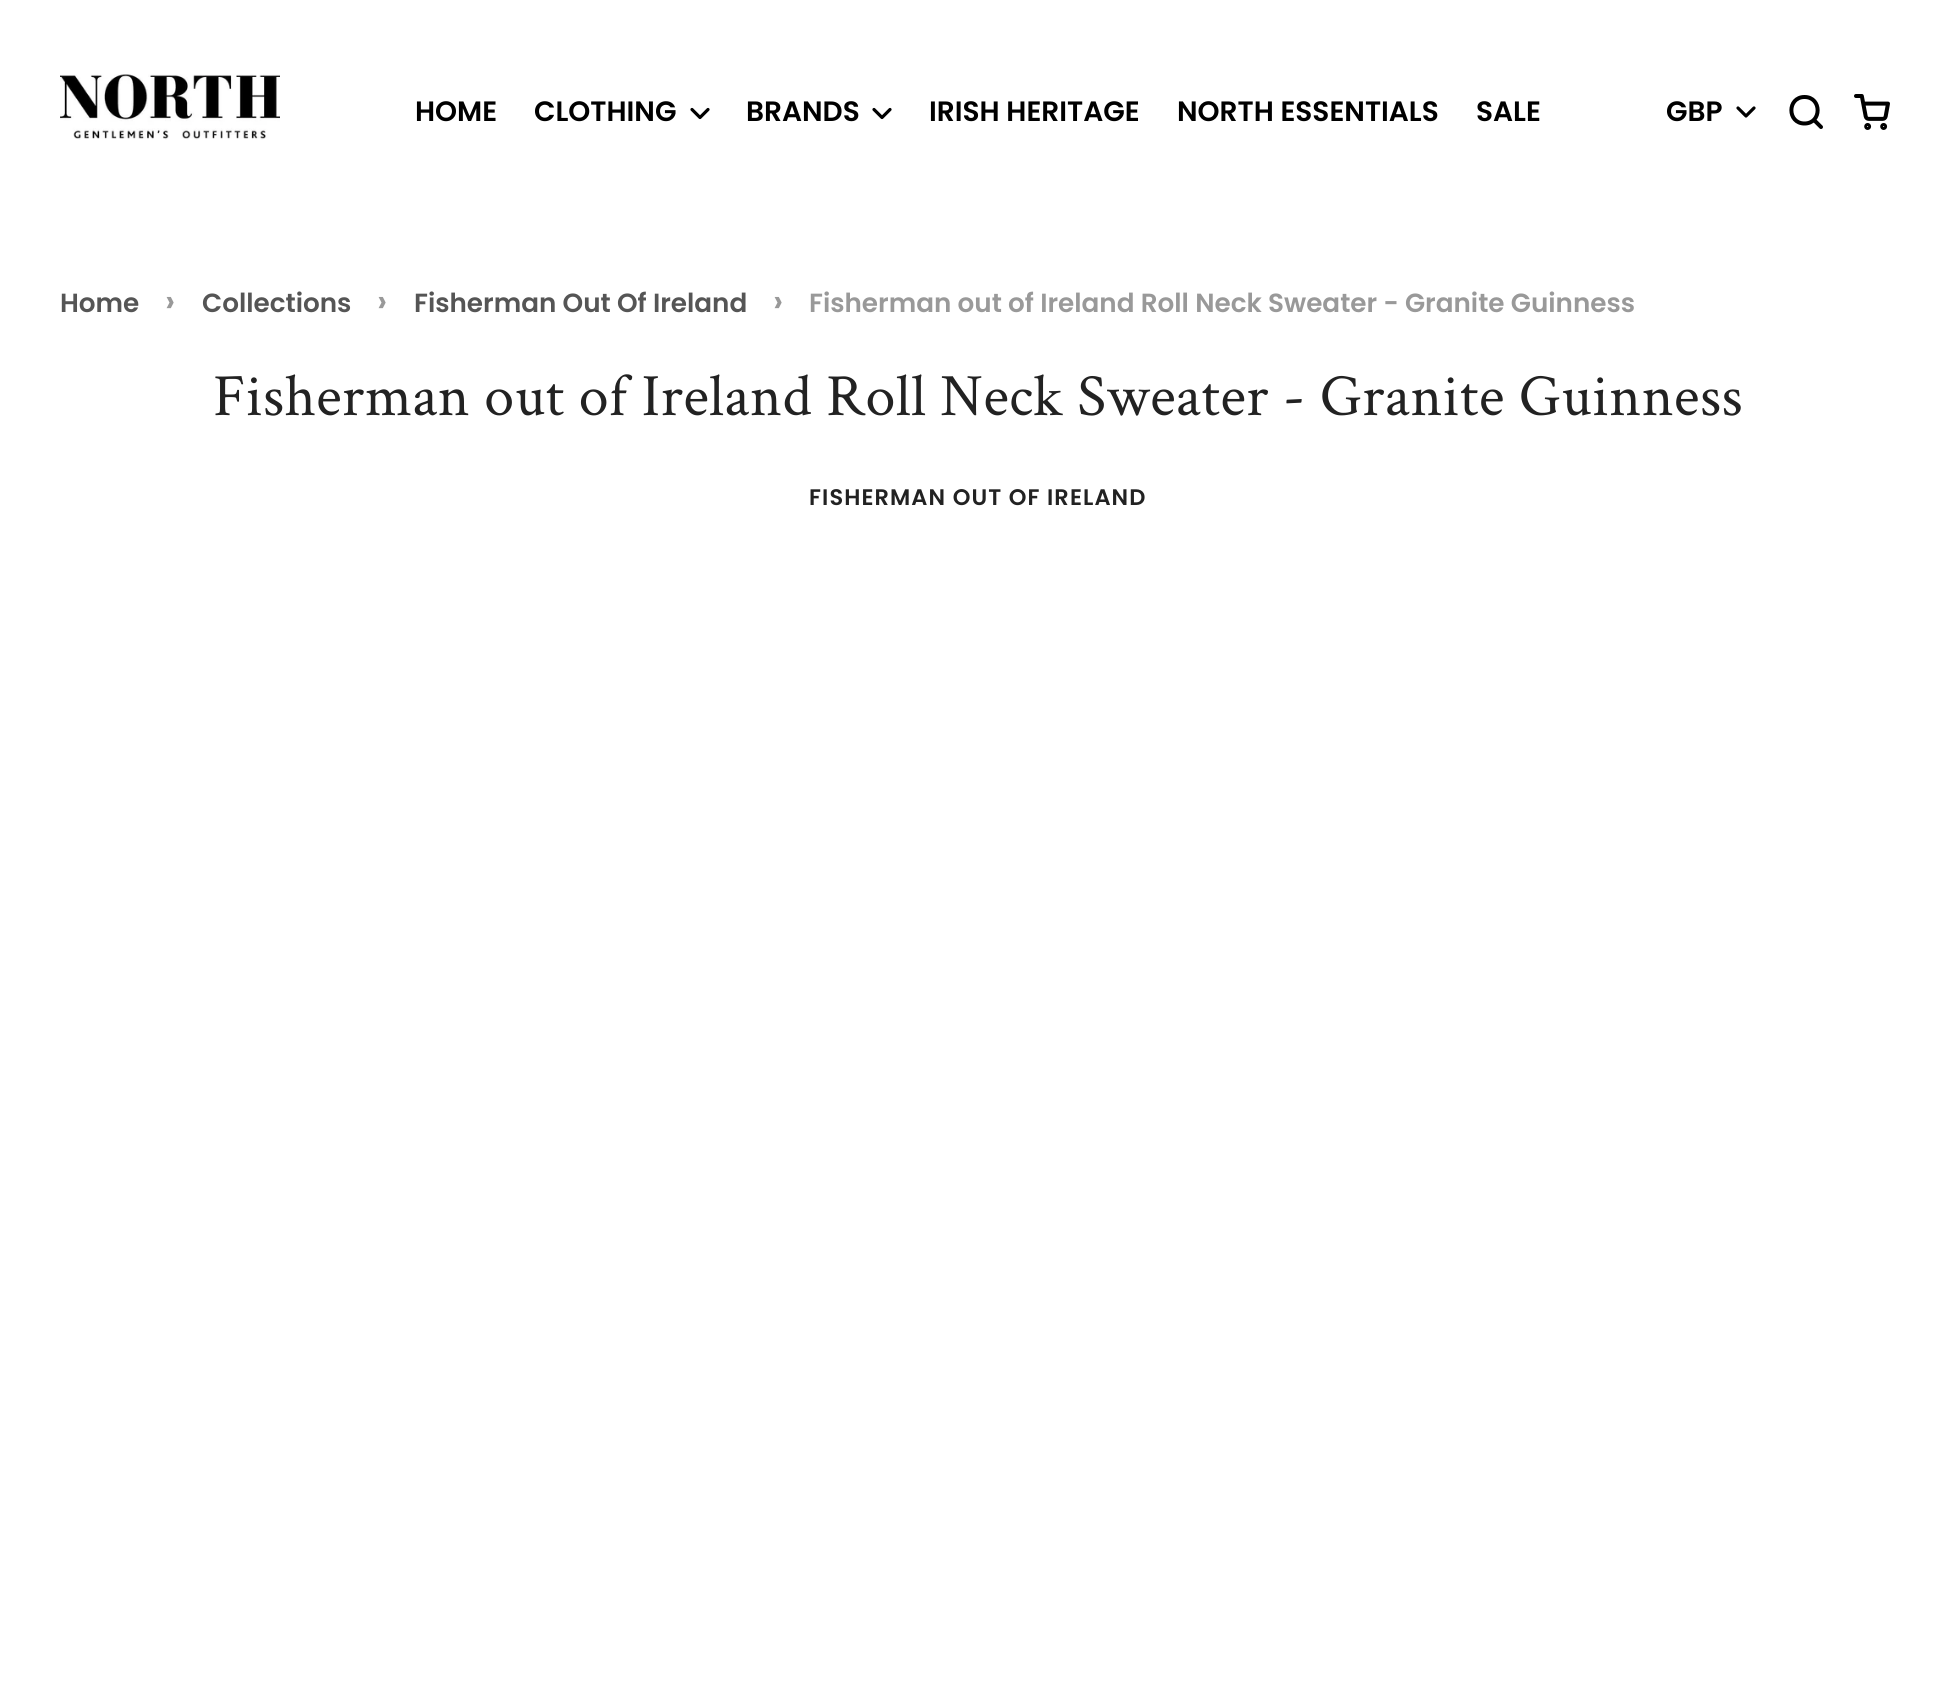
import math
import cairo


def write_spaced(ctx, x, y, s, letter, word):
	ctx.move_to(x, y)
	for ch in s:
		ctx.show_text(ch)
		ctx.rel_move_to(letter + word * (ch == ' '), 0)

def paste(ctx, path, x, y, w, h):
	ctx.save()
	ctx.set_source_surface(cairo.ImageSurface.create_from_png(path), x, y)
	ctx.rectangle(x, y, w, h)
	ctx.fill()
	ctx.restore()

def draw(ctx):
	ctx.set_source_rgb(1, 1, 1)
	ctx.paint()
	paste(ctx, 'media/1.png', 60, 74, 220, 66)
	ctx.select_font_face('Poppins SemiBold')
	ctx.set_font_size(28)
	ctx.set_source_rgb(0, 0, 0)
	ctx.move_to(415, 121)
	ctx.show_text('HOME')
	ctx.move_to(534, 121)
	ctx.show_text('CLOTHING')
	ctx.new_path()
	ctx.move_to(692, 109.5)
	ctx.line_to(700, 117.5)
	ctx.line_to(708, 109.5)
	ctx.set_line_width(3.2)
	ctx.set_line_cap(cairo.LINE_CAP_ROUND)
	ctx.set_line_join(cairo.LINE_JOIN_ROUND)
	ctx.stroke()
	ctx.move_to(746, 121)
	ctx.show_text('BRANDS')
	ctx.new_path()
	ctx.move_to(874, 109.5)
	ctx.line_to(882, 117.5)
	ctx.line_to(890, 109.5)
	ctx.stroke()
	for x, y, s in [
		(929, 121, 'IRISH HERITAGE'),
		(1177, 121, 'NORTH ESSENTIALS'),
		(1476, 121, 'SALE'),
		(1666, 121, 'GBP'),
	]:
		ctx.move_to(x, y)
		ctx.show_text(s)
	ctx.new_path()
	ctx.move_to(1738, 108)
	ctx.line_to(1746, 116)
	ctx.line_to(1754, 108)
	ctx.stroke()
	ctx.new_path()
	ctx.move_to(1804.5, 97)
	ctx.curve_to(1787, 97, 1787, 123.5, 1804.5, 123.5)
	ctx.curve_to(1822, 123.5, 1822, 97, 1804.5, 97)
	ctx.close_path()
	ctx.move_to(1821, 127)
	ctx.line_to(1814, 120)
	ctx.close_path()
	ctx.set_line_width(4)
	ctx.stroke()
	paste(ctx, 'media/2.png', 1854, 94, 36, 36)
	ctx.set_font_size(26.25)
	ctx.set_source_rgb(0.333, 0.333, 0.333)
	ctx.move_to(60, 312)
	ctx.show_text('Home')
	ctx.set_font_size(32)
	ctx.set_source_rgb(0.6, 0.6, 0.6)
	ctx.move_to(165, 312)
	ctx.show_text('›')
	ctx.set_font_size(26.25)
	ctx.set_source_rgb(0.333, 0.333, 0.333)
	ctx.move_to(202, 312)
	ctx.show_text('Collections')
	ctx.set_font_size(32)
	ctx.set_source_rgb(0.6, 0.6, 0.6)
	ctx.move_to(377, 312)
	ctx.show_text('›')
	ctx.set_font_size(26.25)
	ctx.set_source_rgb(0.333, 0.333, 0.333)
	ctx.move_to(414, 312)
	ctx.show_text('Fisherman Out Of Ireland')
	ctx.set_font_size(32)
	ctx.set_source_rgb(0.6, 0.6, 0.6)
	ctx.move_to(773, 312)
	ctx.show_text('›')
	ctx.set_font_size(26.25)
	ctx.move_to(809, 312)
	ctx.show_text('Fisherman out of Ireland Roll Neck Sweater - Granite Guinness')
	ctx.select_font_face('Crimson Text')
	ctx.set_font_size(60)
	ctx.set_source_rgb(0.133, 0.133, 0.133)
	write_spaced(ctx, 213, 415, 'Fisherman out of Ireland Roll Neck Sweater - Granite Guinness', 0.6, 0)
	ctx.select_font_face('Poppins SemiBold')
	ctx.set_font_size(22.5)
	write_spaced(ctx, 809, 505, 'FISHERMAN OUT OF IRELAND', 1.1, 0)


surface = cairo.ImageSurface(cairo.FORMAT_RGB24, 1956, 1705)
ctx = cairo.Context(surface)
options = cairo.FontOptions()
options.set_hint_metrics(cairo.HINT_METRICS_OFF)
options.set_hint_style(cairo.HINT_STYLE_NONE)
ctx.set_font_options(options)
ctx.set_miter_limit(4)
draw(ctx)
surface.write_to_png('image.png')
